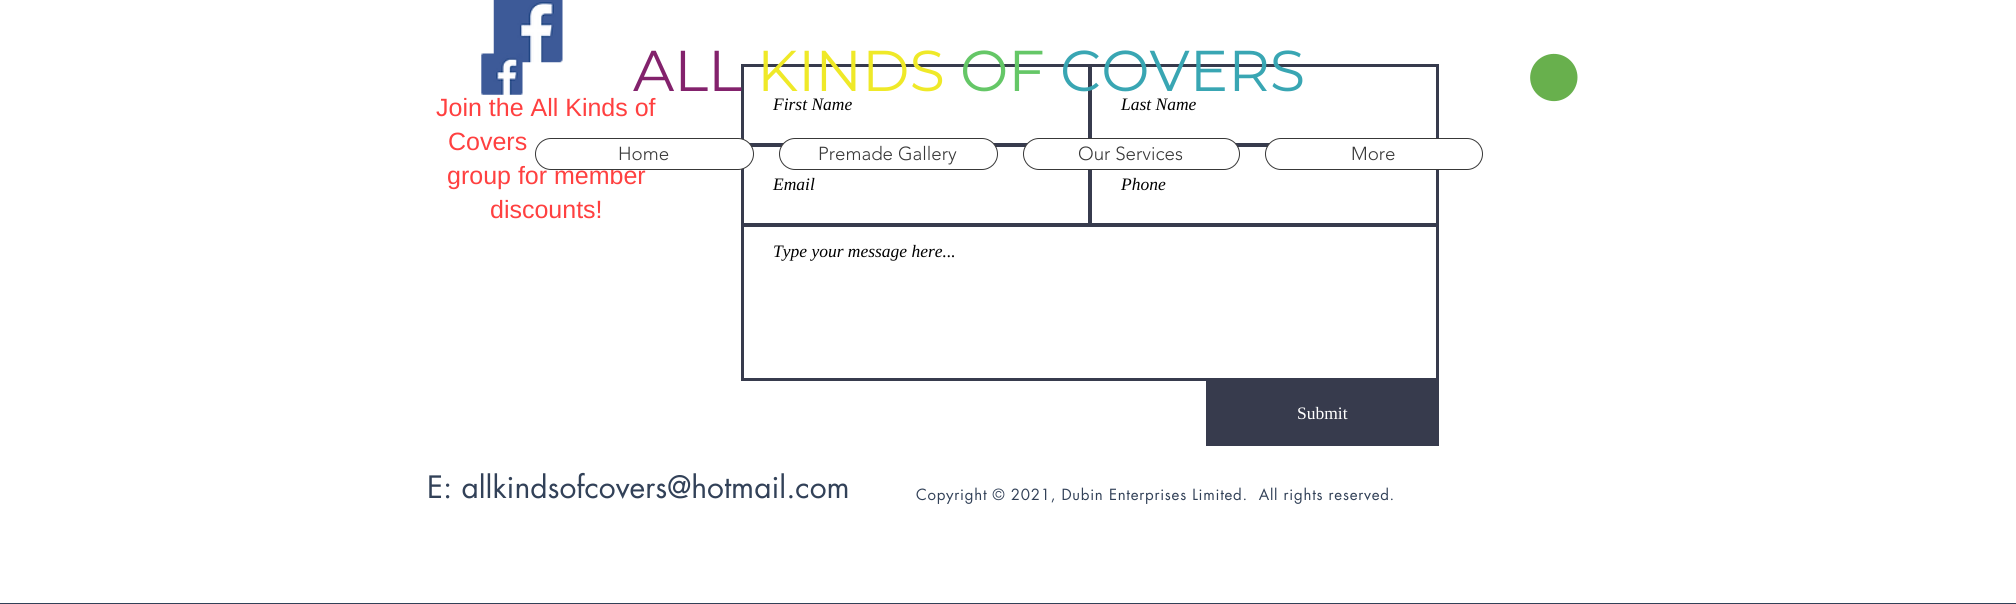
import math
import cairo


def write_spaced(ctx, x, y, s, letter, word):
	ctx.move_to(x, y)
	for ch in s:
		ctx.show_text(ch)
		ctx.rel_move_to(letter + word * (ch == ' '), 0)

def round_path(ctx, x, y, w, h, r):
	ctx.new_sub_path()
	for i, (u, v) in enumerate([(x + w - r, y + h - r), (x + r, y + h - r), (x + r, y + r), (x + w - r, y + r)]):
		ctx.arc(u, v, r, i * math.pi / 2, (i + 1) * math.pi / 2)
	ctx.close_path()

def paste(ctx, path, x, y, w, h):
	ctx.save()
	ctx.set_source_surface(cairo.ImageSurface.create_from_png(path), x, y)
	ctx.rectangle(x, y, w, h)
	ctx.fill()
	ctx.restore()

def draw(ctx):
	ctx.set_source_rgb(1, 1, 1)
	ctx.paint()
	paste(ctx, 'media/3.png', 493, 0, 70, 63)
	paste(ctx, 'media/1.png', 481, 53, 42, 42)
	ctx.rectangle(742.5, 65.5, 347, 79)
	ctx.set_source_rgb(0.216, 0.231, 0.302)
	ctx.set_line_width(3)
	ctx.stroke()
	ctx.select_font_face('Montserrat')
	ctx.set_font_size(57.5)
	ctx.set_source_rgb(0.514, 0.133, 0.424)
	ctx.move_to(633, 91)
	ctx.show_text('ALL')
	ctx.set_source_rgb(0.937, 0.914, 0.157)
	ctx.move_to(757, 91)
	ctx.show_text('KINDS')
	ctx.set_source_rgb(0.396, 0.78, 0.404)
	ctx.move_to(960, 91)
	ctx.show_text('OF')
	ctx.rectangle(1090.5, 65.5, 347, 79)
	ctx.set_source_rgb(0.216, 0.231, 0.302)
	ctx.stroke()
	ctx.set_source_rgb(0.224, 0.651, 0.702)
	ctx.move_to(1060, 91)
	ctx.show_text('COVERS')
	paste(ctx, 'media/2.png', 1530, 53, 48, 49)
	ctx.select_font_face('Liberation Sans')
	ctx.set_font_size(25)
	ctx.set_source_rgb(1, 0.251, 0.251)
	ctx.move_to(447, 184)
	ctx.show_text('group for member')
	ctx.rectangle(742.5, 145.5, 347, 79)
	ctx.set_source_rgb(0.216, 0.231, 0.302)
	ctx.stroke()
	ctx.set_source_rgb(1, 1, 1)
	round_path(ctx, 535.5, 138.5, 218, 31, 15.5)
	ctx.fill_preserve()
	ctx.set_source_rgb(0.22, 0.22, 0.22)
	ctx.set_line_width(1)
	ctx.stroke()
	ctx.select_font_face('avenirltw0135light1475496 Light')
	ctx.set_font_size(18.75)
	ctx.move_to(618, 160)
	ctx.show_text('Home')
	ctx.set_source_rgb(1, 1, 1)
	round_path(ctx, 779.5, 138.5, 218, 31, 15.5)
	ctx.fill_preserve()
	ctx.set_source_rgb(0.22, 0.22, 0.22)
	ctx.stroke()
	ctx.move_to(818, 160)
	ctx.show_text('Premade Gallery')
	ctx.rectangle(1090.5, 145.5, 347, 79)
	ctx.set_source_rgb(0.216, 0.231, 0.302)
	ctx.set_line_width(3)
	ctx.stroke()
	ctx.set_source_rgb(1, 1, 1)
	round_path(ctx, 1023.5, 138.5, 216, 31, 15.5)
	ctx.fill_preserve()
	ctx.set_source_rgb(0.22, 0.22, 0.22)
	ctx.set_line_width(1)
	ctx.stroke()
	ctx.move_to(1078, 160)
	ctx.show_text('Our Services')
	ctx.set_source_rgb(1, 1, 1)
	round_path(ctx, 1265.5, 138.5, 217, 31, 15.5)
	ctx.fill_preserve()
	ctx.set_source_rgb(0.22, 0.22, 0.22)
	ctx.stroke()
	ctx.move_to(1351, 160)
	ctx.show_text('More')
	ctx.select_font_face('Liberation Sans')
	ctx.set_font_size(25)
	ctx.set_source_rgb(1, 0.251, 0.251)
	for x, y, s in [
		(436, 116, 'Join the All Kinds of'),
		(448, 150, 'Covers'),
		(490, 218, 'discounts!'),
	]:
		ctx.move_to(x, y)
		ctx.show_text(s)
	ctx.select_font_face('Liberation Serif', cairo.FONT_SLANT_ITALIC)
	ctx.set_font_size(17.5)
	ctx.set_source_rgb(0, 0, 0)
	for x, y, s in [
		(773, 110, 'First Name'),
		(1121, 110, 'Last Name'),
		(773, 190, 'Email'),
		(1121, 190, 'Phone'),
	]:
		ctx.move_to(x, y)
		ctx.show_text(s)
	ctx.rectangle(742.5, 225.5, 695, 154)
	ctx.set_source_rgb(0.216, 0.231, 0.302)
	ctx.set_line_width(3)
	ctx.stroke()
	ctx.set_source_rgb(0, 0, 0)
	ctx.move_to(773, 257)
	ctx.show_text('Type your message here...')
	ctx.set_source_rgb(0.216, 0.231, 0.302)
	ctx.rectangle(1206, 381, 233, 65)
	ctx.fill()
	ctx.select_font_face('Liberation Serif')
	ctx.set_source_rgb(1, 1, 1)
	ctx.move_to(1297, 419)
	ctx.show_text('Submit')
	ctx.select_font_face('futura')
	ctx.set_font_size(30)
	ctx.set_source_rgb(0.196, 0.255, 0.345)
	ctx.move_to(427, 498)
	ctx.show_text('E: allkindsofcovers@hotmail.com')
	ctx.set_font_size(15)
	write_spaced(ctx, 916, 500, 'Copyright © 2021, Dubin Enterprises Limited.  All rights reserved.', 0.75, 0)
	ctx.rectangle(0, 603, 2016, 1)
	ctx.fill()


surface = cairo.ImageSurface(cairo.FORMAT_RGB24, 2016, 604)
ctx = cairo.Context(surface)
options = cairo.FontOptions()
options.set_hint_metrics(cairo.HINT_METRICS_OFF)
options.set_hint_style(cairo.HINT_STYLE_NONE)
ctx.set_font_options(options)
ctx.set_miter_limit(4)
draw(ctx)
surface.write_to_png('image.png')
